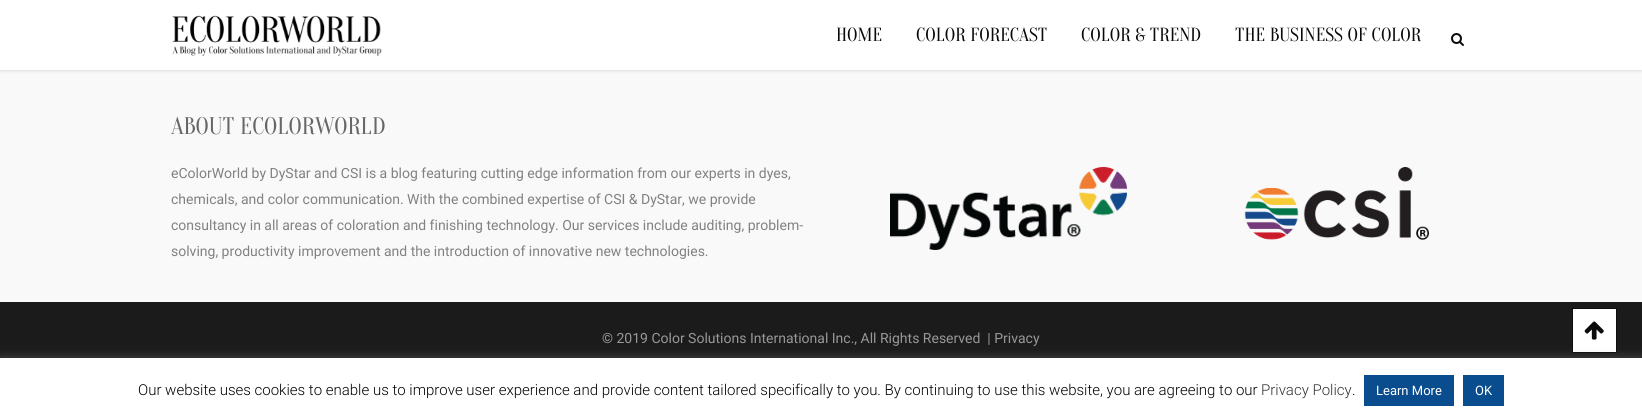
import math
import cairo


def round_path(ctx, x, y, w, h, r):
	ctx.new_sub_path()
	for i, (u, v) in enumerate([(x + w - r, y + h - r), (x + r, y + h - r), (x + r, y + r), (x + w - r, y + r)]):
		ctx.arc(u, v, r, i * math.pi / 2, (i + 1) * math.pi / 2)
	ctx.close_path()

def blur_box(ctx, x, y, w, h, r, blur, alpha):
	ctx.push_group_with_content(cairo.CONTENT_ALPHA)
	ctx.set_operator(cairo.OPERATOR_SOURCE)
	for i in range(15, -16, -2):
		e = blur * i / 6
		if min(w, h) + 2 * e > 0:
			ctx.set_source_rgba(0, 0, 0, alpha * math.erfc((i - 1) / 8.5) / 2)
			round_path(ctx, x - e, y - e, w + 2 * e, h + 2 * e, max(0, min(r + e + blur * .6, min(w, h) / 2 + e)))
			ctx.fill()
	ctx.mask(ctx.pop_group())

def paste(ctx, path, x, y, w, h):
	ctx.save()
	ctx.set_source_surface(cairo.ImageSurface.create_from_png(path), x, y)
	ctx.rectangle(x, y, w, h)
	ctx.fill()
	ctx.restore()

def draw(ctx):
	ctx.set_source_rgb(0.106, 0.106, 0.106)
	ctx.paint()
	ctx.set_source_rgb(0.976, 0.976, 0.976)
	ctx.rectangle(0, 70, 1642, 232)
	ctx.fill()
	ctx.set_source_rgb(0, 0, 0)
	blur_box(ctx, 0, 1, 1642, 70, 0, 1.5, 0.11)
	ctx.set_source_rgb(1, 1, 1)
	ctx.rectangle(0, 0, 1642, 70)
	ctx.fill()
	paste(ctx, 'media/1.png', 172, 15, 210, 41)
	ctx.select_font_face('Oranienbaum')
	ctx.set_font_size(19)
	ctx.set_source_rgb(0.039, 0.039, 0.039)
	for x, y, s in [
		(836, 41, 'HOME'),
		(916, 41, 'COLOR FORECAST'),
		(1081, 41, 'COLOR & TREND'),
		(1235, 41, 'THE BUSINESS OF COLOR'),
	]:
		ctx.move_to(x, y)
		ctx.show_text(s)
	paste(ctx, 'media/2.png', 1451, 33, 13, 13)
	ctx.set_font_size(24)
	ctx.set_source_rgb(0.4, 0.4, 0.4)
	ctx.move_to(171, 134)
	ctx.show_text('ABOUT ECOLORWORLD')
	ctx.select_font_face('Roboto')
	ctx.set_font_size(14)
	ctx.set_source_rgb(0.506, 0.506, 0.506)
	for x, y, s in [
		(171, 178, 'eColorWorld by DyStar and CSI is a blog featuring cutting edge information from our experts in dyes,'),
		(171, 204, 'chemicals, and color communication. With the combined expertise of CSI & DyStar, we provide'),
		(171, 230, 'consultancy in all areas of coloration and finishing technology. Our services include auditing, problem-'),
		(171, 256, 'solving, productivity improvement and the introduction of innovative new technologies.'),
	]:
		ctx.move_to(x, y)
		ctx.show_text(s)
	paste(ctx, 'media/3.png', 890, 167, 237, 83)
	paste(ctx, 'media/4.png', 1244, 167, 185, 73)
	ctx.set_source_rgb(0.596, 0.596, 0.596)
	ctx.move_to(602, 343)
	ctx.show_text('© 2019 Color Solutions International Inc., All Rights Reserved  | Privacy')
	ctx.set_source_rgb(1, 1, 1)
	ctx.rectangle(1572.5, 308.5, 44, 44)
	ctx.fill_preserve()
	ctx.set_source_rgb(0.047, 0.047, 0.047)
	ctx.set_line_width(1)
	ctx.stroke()
	paste(ctx, 'media/5.png', 1584, 321, 20, 19)
	ctx.set_source_rgb(0.675, 0.671, 0.671)
	blur_box(ctx, 0, 357, 1642, 60, 0, 5, 0.3)
	ctx.set_source_rgb(1, 1, 1)
	ctx.rectangle(0, 358, 1642, 60)
	ctx.fill()
	ctx.select_font_face('Roboto Light')
	ctx.set_font_size(15)
	ctx.set_source_rgb(0, 0, 0)
	ctx.move_to(138, 395)
	ctx.show_text('Our website uses cookies to enable us to improve user experience and provide content tailored specifically to you. By continuing to use this website, you are agreeing to our')
	ctx.set_source_rgb(0.188, 0.188, 0.188)
	ctx.move_to(1261, 395)
	ctx.show_text('Privacy Policy')
	ctx.set_source_rgb(0, 0, 0)
	ctx.move_to(1352, 395)
	ctx.show_text('.')
	ctx.set_source_rgb(0.039, 0.302, 0.557)
	ctx.rectangle(1364, 375, 90, 31)
	ctx.fill()
	ctx.select_font_face('Roboto')
	ctx.set_font_size(13)
	ctx.set_source_rgb(1, 1, 1)
	ctx.move_to(1376, 395)
	ctx.show_text('Learn More')
	ctx.set_source_rgb(0.039, 0.302, 0.557)
	ctx.rectangle(1463, 375, 41, 31)
	ctx.fill()
	ctx.set_source_rgb(1, 1, 1)
	ctx.move_to(1475, 395)
	ctx.show_text('OK')


surface = cairo.ImageSurface(cairo.FORMAT_RGB24, 1642, 418)
ctx = cairo.Context(surface)
options = cairo.FontOptions()
options.set_hint_metrics(cairo.HINT_METRICS_OFF)
options.set_hint_style(cairo.HINT_STYLE_NONE)
ctx.set_font_options(options)
ctx.set_miter_limit(4)
draw(ctx)
surface.write_to_png('image.png')
